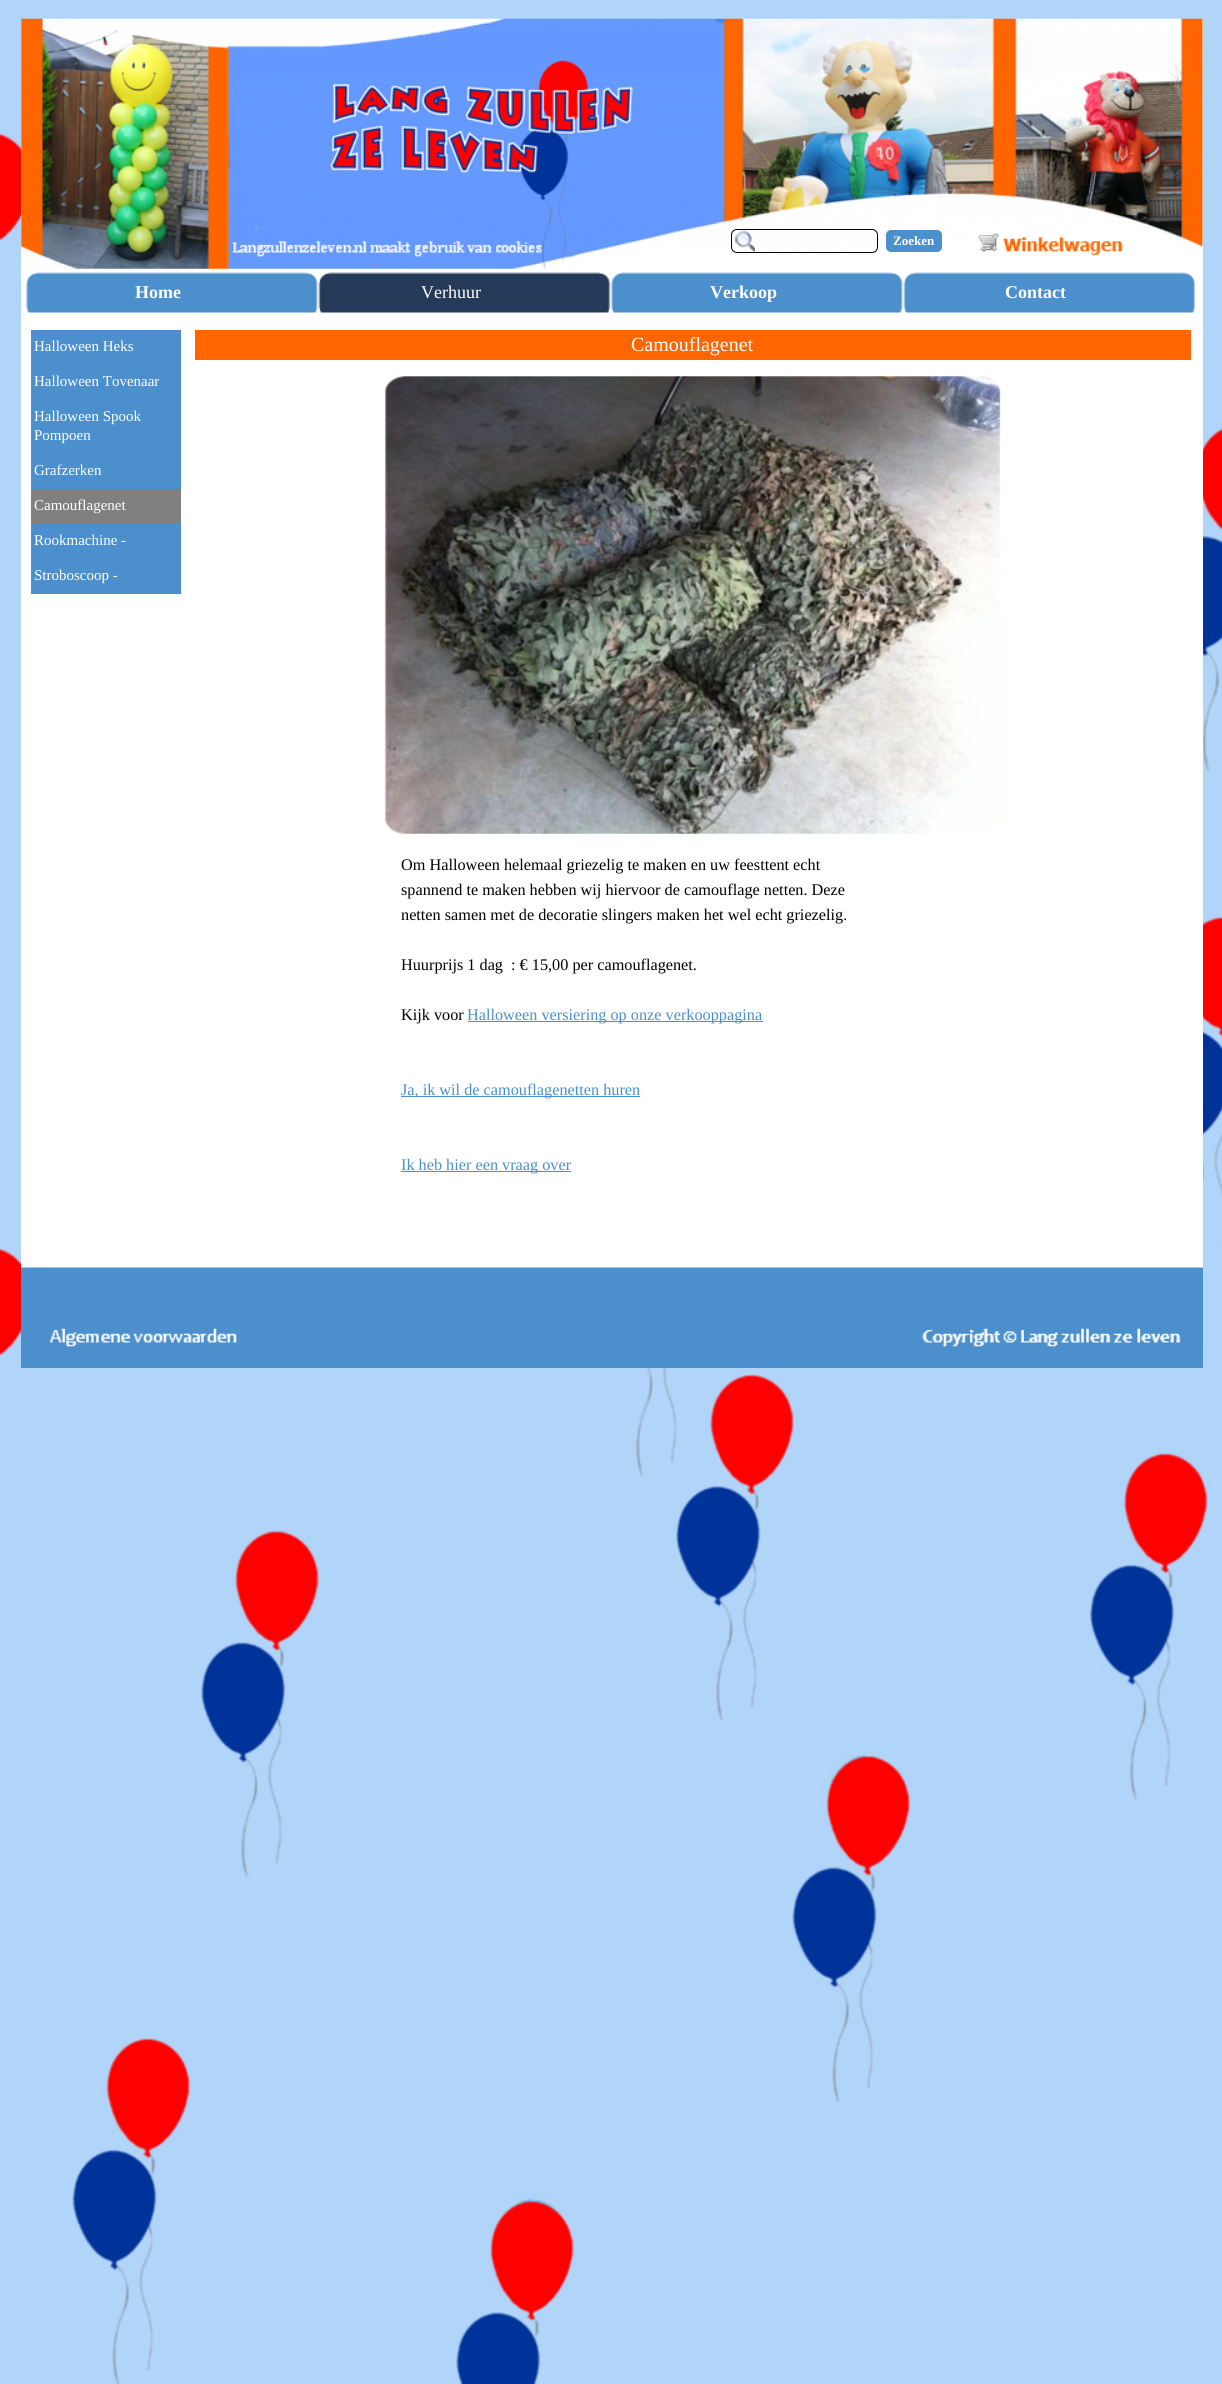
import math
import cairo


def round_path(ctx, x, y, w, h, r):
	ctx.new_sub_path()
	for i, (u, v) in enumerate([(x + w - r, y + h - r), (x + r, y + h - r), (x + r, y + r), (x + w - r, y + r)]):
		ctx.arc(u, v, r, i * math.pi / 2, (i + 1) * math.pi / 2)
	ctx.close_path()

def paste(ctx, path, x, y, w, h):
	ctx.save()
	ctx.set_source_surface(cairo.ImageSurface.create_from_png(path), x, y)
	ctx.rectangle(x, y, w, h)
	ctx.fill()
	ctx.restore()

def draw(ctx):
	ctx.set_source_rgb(1, 1, 1)
	ctx.paint()
	paste(ctx, 'media/1.png', 0, 0, 1222, 2384)
	ctx.set_source_rgb(1, 1, 1)
	ctx.rectangle(21, 19, 1182, 250)
	ctx.fill()
	paste(ctx, 'media/2.png', 21, 18, 1182, 251)
	paste(ctx, 'media/3.png', 735, 231, 20, 21)
	round_path(ctx, 731.5, 229.5, 146, 23, 5.5)
	ctx.set_source_rgb(0, 0, 0)
	ctx.set_line_width(1)
	ctx.stroke()
	ctx.set_source_rgb(0.294, 0.561, 0.8)
	round_path(ctx, 885.5, 229.5, 57, 23, 5.5)
	ctx.fill_preserve()
	ctx.set_source_rgb(1, 1, 1)
	ctx.stroke()
	ctx.select_font_face('Liberation Serif', cairo.FONT_SLANT_NORMAL, cairo.FONT_WEIGHT_BOLD)
	ctx.set_font_size(13)
	ctx.move_to(893, 245)
	ctx.show_text('Zoeken')
	ctx.rectangle(21, 269, 1182, 999)
	ctx.fill()
	paste(ctx, 'media/4.png', 26, 272, 292, 41)
	ctx.set_font_size(18)
	ctx.move_to(135, 298)
	ctx.show_text('Home')
	paste(ctx, 'media/5.png', 318, 272, 293, 41)
	ctx.select_font_face('Liberation Serif')
	ctx.move_to(421, 298)
	ctx.show_text('Verhuur')
	paste(ctx, 'media/6.png', 611, 272, 292, 41)
	ctx.select_font_face('Liberation Serif', cairo.FONT_SLANT_NORMAL, cairo.FONT_WEIGHT_BOLD)
	ctx.move_to(710, 298)
	ctx.show_text('Verkoop')
	paste(ctx, 'media/7.png', 903, 272, 293, 41)
	ctx.move_to(1005, 298)
	ctx.show_text('Contact')
	ctx.set_source_rgb(0.294, 0.561, 0.8)
	ctx.rectangle(31, 330, 150, 159)
	ctx.fill()
	ctx.select_font_face('Liberation Serif')
	ctx.set_font_size(15)
	ctx.set_source_rgb(1, 1, 1)
	for x, y, s in [
		(34, 351, 'Halloween Heks'),
		(34, 386, 'Halloween Tovenaar'),
		(34, 421, 'Halloween Spook'),
		(34, 440, 'Pompoen'),
		(34, 475, 'Grafzerken'),
	]:
		ctx.move_to(x, y)
		ctx.show_text(s)
	ctx.set_source_rgb(0.502, 0.502, 0.502)
	ctx.rectangle(31, 489, 150, 34)
	ctx.fill()
	ctx.set_source_rgb(0.294, 0.561, 0.8)
	ctx.rectangle(31, 523, 150, 71)
	ctx.fill()
	ctx.set_source_rgb(1, 1, 1)
	for x, y, s in [
		(34, 510, 'Camouflagenet'),
		(34, 545, 'Rookmachine -'),
		(34, 580, 'Stroboscoop -'),
	]:
		ctx.move_to(x, y)
		ctx.show_text(s)
	ctx.set_source_rgb(1, 0.4, 0)
	ctx.rectangle(195, 330, 996, 30)
	ctx.fill()
	ctx.set_font_size(20)
	ctx.set_source_rgb(1, 1, 1)
	ctx.move_to(631, 351)
	ctx.show_text('Camouflagenet')
	paste(ctx, 'media/8.png', 384, 376, 617, 458)
	ctx.set_font_size(16.25)
	ctx.set_source_rgb(0, 0, 0)
	for x, y, s in [
		(401, 870, 'Om Halloween helemaal griezelig te maken en uw feesttent echt'),
		(401, 895, 'spannend te maken hebben wij hiervoor de camouflage netten. Deze'),
		(401, 920, 'netten samen met de decoratie slingers maken het wel echt griezelig.'),
		(401, 970, 'Huurprijs 1 dag'),
		(511, 970, ': € 15,00 per camouflagenet.'),
		(401, 1020, 'Kijk voor'),
	]:
		ctx.move_to(x, y)
		ctx.show_text(s)
	ctx.set_source_rgb(0.294, 0.561, 0.8)
	ctx.rectangle(468, 1021, 295, 1)
	ctx.fill()
	ctx.move_to(467, 1020)
	ctx.show_text('Halloween versiering op onze verkooppagina')
	ctx.rectangle(401, 1096, 239, 1)
	ctx.fill()
	ctx.move_to(401, 1095)
	ctx.show_text('Ja, ik wil de camouflagenetten huren')
	ctx.rectangle(401, 1171, 170, 1)
	ctx.fill()
	ctx.move_to(401, 1170)
	ctx.show_text('Ik heb hier een vraag over')
	ctx.rectangle(21, 1268, 1182, 100)
	ctx.fill()
	paste(ctx, 'media/9.png', 21, 1267, 1182, 80)


surface = cairo.ImageSurface(cairo.FORMAT_RGB24, 1222, 2384)
ctx = cairo.Context(surface)
options = cairo.FontOptions()
options.set_hint_metrics(cairo.HINT_METRICS_OFF)
options.set_hint_style(cairo.HINT_STYLE_NONE)
ctx.set_font_options(options)
ctx.set_miter_limit(4)
draw(ctx)
surface.write_to_png('image.png')
